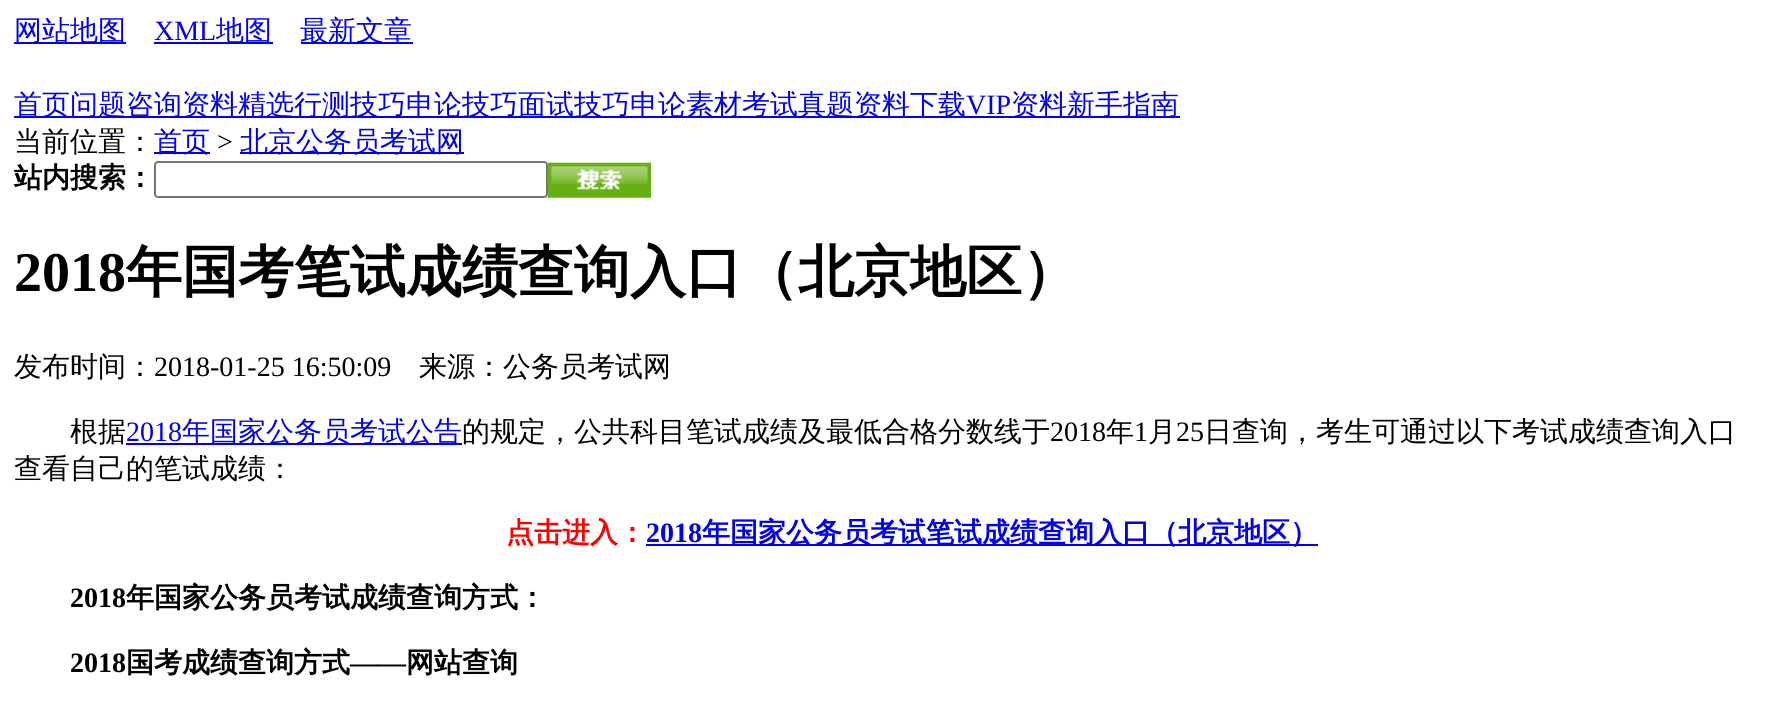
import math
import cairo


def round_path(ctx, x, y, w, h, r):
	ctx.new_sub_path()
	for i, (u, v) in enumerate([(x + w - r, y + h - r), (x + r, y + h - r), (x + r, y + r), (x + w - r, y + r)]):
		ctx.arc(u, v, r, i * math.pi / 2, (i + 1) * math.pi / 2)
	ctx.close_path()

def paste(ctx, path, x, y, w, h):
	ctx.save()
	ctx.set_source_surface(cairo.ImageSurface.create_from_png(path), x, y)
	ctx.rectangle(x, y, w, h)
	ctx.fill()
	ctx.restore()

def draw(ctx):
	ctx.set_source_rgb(1, 1, 1)
	ctx.paint()
	ctx.set_source_rgb(0, 0, 0.933)
	ctx.rectangle(14, 42, 112, 2)
	ctx.fill()
	ctx.select_font_face('WenQuanYi Zen Hei Medium')
	ctx.set_font_size(28)
	ctx.move_to(14, 40)
	ctx.show_text('网站地图')
	ctx.select_font_face('Liberation Serif')
	ctx.move_to(154, 40)
	ctx.show_text('XML')
	ctx.rectangle(154, 42, 119, 2)
	ctx.fill()
	ctx.select_font_face('WenQuanYi Zen Hei Medium')
	ctx.move_to(216, 40)
	ctx.show_text('地图')
	ctx.rectangle(301, 42, 112, 2)
	ctx.fill()
	ctx.move_to(300, 40)
	ctx.show_text('最新文章')
	ctx.rectangle(14, 116, 1166, 2)
	ctx.fill()
	ctx.move_to(14, 114)
	ctx.show_text('首页问题咨询资料精选行测技巧申论技巧面试技巧申论素材考试真题资料下载')
	ctx.select_font_face('Liberation Serif')
	ctx.move_to(966, 114)
	ctx.show_text('VIP')
	ctx.select_font_face('WenQuanYi Zen Hei Medium')
	ctx.move_to(1011, 114)
	ctx.show_text('资料新手指南')
	ctx.set_source_rgb(0, 0, 0)
	ctx.move_to(14, 151)
	ctx.show_text('当前位置：')
	ctx.set_source_rgb(0, 0, 0.933)
	ctx.rectangle(154, 152, 56, 2)
	ctx.fill()
	ctx.move_to(154, 151)
	ctx.show_text('首页')
	ctx.select_font_face('Liberation Serif')
	ctx.set_source_rgb(0, 0, 0)
	ctx.move_to(217, 151)
	ctx.show_text('>')
	ctx.set_source_rgb(0, 0, 0.933)
	ctx.rectangle(240, 152, 224, 2)
	ctx.fill()
	ctx.select_font_face('WenQuanYi Zen Hei Medium')
	ctx.move_to(240, 151)
	ctx.show_text('北京公务员考试网')
	ctx.select_font_face('WenQuanYi Zen Hei', cairo.FONT_SLANT_NORMAL, cairo.FONT_WEIGHT_BOLD)
	ctx.set_source_rgb(0, 0, 0)
	ctx.move_to(14, 187)
	ctx.show_text('站内搜索：')
	round_path(ctx, 155, 162, 392, 35, 3)
	ctx.set_source_rgb(0.463, 0.463, 0.463)
	ctx.stroke()
	paste(ctx, 'media/1.png', 547, 162, 104, 36)
	ctx.select_font_face('Liberation Serif', cairo.FONT_SLANT_NORMAL, cairo.FONT_WEIGHT_BOLD)
	ctx.set_font_size(56)
	ctx.set_source_rgb(0, 0, 0)
	ctx.move_to(14, 291)
	ctx.show_text('2018')
	ctx.select_font_face('WenQuanYi Zen Hei', cairo.FONT_SLANT_NORMAL, cairo.FONT_WEIGHT_BOLD)
	ctx.move_to(126, 291)
	ctx.show_text('年国考笔试成绩查询入口（北京地区）')
	ctx.select_font_face('WenQuanYi Zen Hei Medium')
	ctx.set_font_size(28)
	ctx.move_to(14, 376)
	ctx.show_text('发布时间：')
	ctx.select_font_face('Liberation Serif')
	ctx.move_to(154, 376)
	ctx.show_text('2018-01-25 16:50:09')
	ctx.select_font_face('WenQuanYi Zen Hei Medium')
	ctx.move_to(419, 376)
	ctx.show_text('来源：公务员考试网')
	ctx.move_to(70, 441)
	ctx.show_text('根据')
	ctx.select_font_face('Liberation Serif')
	ctx.set_source_rgb(0, 0, 0.933)
	ctx.move_to(126, 441)
	ctx.show_text('2018')
	ctx.rectangle(126, 443, 336, 2)
	ctx.fill()
	ctx.select_font_face('WenQuanYi Zen Hei Medium')
	ctx.move_to(182, 441)
	ctx.show_text('年国家公务员考试公告')
	ctx.set_source_rgb(0, 0, 0)
	ctx.move_to(462, 441)
	ctx.show_text('的规定，公共科目笔试成绩及最低合格分数线于')
	ctx.select_font_face('Liberation Serif')
	ctx.move_to(1050, 441)
	ctx.show_text('2018')
	ctx.select_font_face('WenQuanYi Zen Hei Medium')
	ctx.move_to(1106, 441)
	ctx.show_text('年')
	ctx.select_font_face('Liberation Serif')
	ctx.move_to(1134, 441)
	ctx.show_text('1')
	ctx.select_font_face('WenQuanYi Zen Hei Medium')
	ctx.move_to(1148, 441)
	ctx.show_text('月')
	ctx.select_font_face('Liberation Serif')
	ctx.move_to(1176, 441)
	ctx.show_text('25')
	ctx.select_font_face('WenQuanYi Zen Hei Medium')
	ctx.move_to(1204, 441)
	ctx.show_text('日查询，考生可通过以下考试成绩查询入口')
	ctx.move_to(14, 478)
	ctx.show_text('查看自己的笔试成绩：')
	ctx.select_font_face('WenQuanYi Zen Hei', cairo.FONT_SLANT_NORMAL, cairo.FONT_WEIGHT_BOLD)
	ctx.set_source_rgb(1, 0, 0)
	ctx.move_to(506, 542)
	ctx.show_text('点击进入：')
	ctx.select_font_face('Liberation Serif', cairo.FONT_SLANT_NORMAL, cairo.FONT_WEIGHT_BOLD)
	ctx.set_source_rgb(0, 0, 0.933)
	ctx.move_to(646, 542)
	ctx.show_text('2018')
	ctx.rectangle(646, 544, 672, 2)
	ctx.fill()
	ctx.select_font_face('WenQuanYi Zen Hei', cairo.FONT_SLANT_NORMAL, cairo.FONT_WEIGHT_BOLD)
	ctx.move_to(702, 542)
	ctx.show_text('年国家公务员考试笔试成绩查询入口（北京地区）')
	ctx.select_font_face('Liberation Serif', cairo.FONT_SLANT_NORMAL, cairo.FONT_WEIGHT_BOLD)
	ctx.set_source_rgb(0, 0, 0)
	ctx.move_to(70, 607)
	ctx.show_text('2018')
	ctx.select_font_face('WenQuanYi Zen Hei', cairo.FONT_SLANT_NORMAL, cairo.FONT_WEIGHT_BOLD)
	ctx.move_to(126, 607)
	ctx.show_text('年国家公务员考试成绩查询方式：')
	ctx.select_font_face('Liberation Serif', cairo.FONT_SLANT_NORMAL, cairo.FONT_WEIGHT_BOLD)
	ctx.move_to(70, 672)
	ctx.show_text('2018')
	ctx.select_font_face('WenQuanYi Zen Hei', cairo.FONT_SLANT_NORMAL, cairo.FONT_WEIGHT_BOLD)
	ctx.move_to(126, 672)
	ctx.show_text('国考成绩查询方式')
	ctx.select_font_face('Liberation Serif', cairo.FONT_SLANT_NORMAL, cairo.FONT_WEIGHT_BOLD)
	ctx.move_to(350, 672)
	ctx.show_text('——')
	ctx.select_font_face('WenQuanYi Zen Hei', cairo.FONT_SLANT_NORMAL, cairo.FONT_WEIGHT_BOLD)
	ctx.move_to(406, 672)
	ctx.show_text('网站查询')


surface = cairo.ImageSurface(cairo.FORMAT_RGB24, 1767, 703)
ctx = cairo.Context(surface)
options = cairo.FontOptions()
options.set_hint_metrics(cairo.HINT_METRICS_OFF)
options.set_hint_style(cairo.HINT_STYLE_NONE)
ctx.set_font_options(options)
ctx.set_miter_limit(4)
draw(ctx)
surface.write_to_png('image.png')
